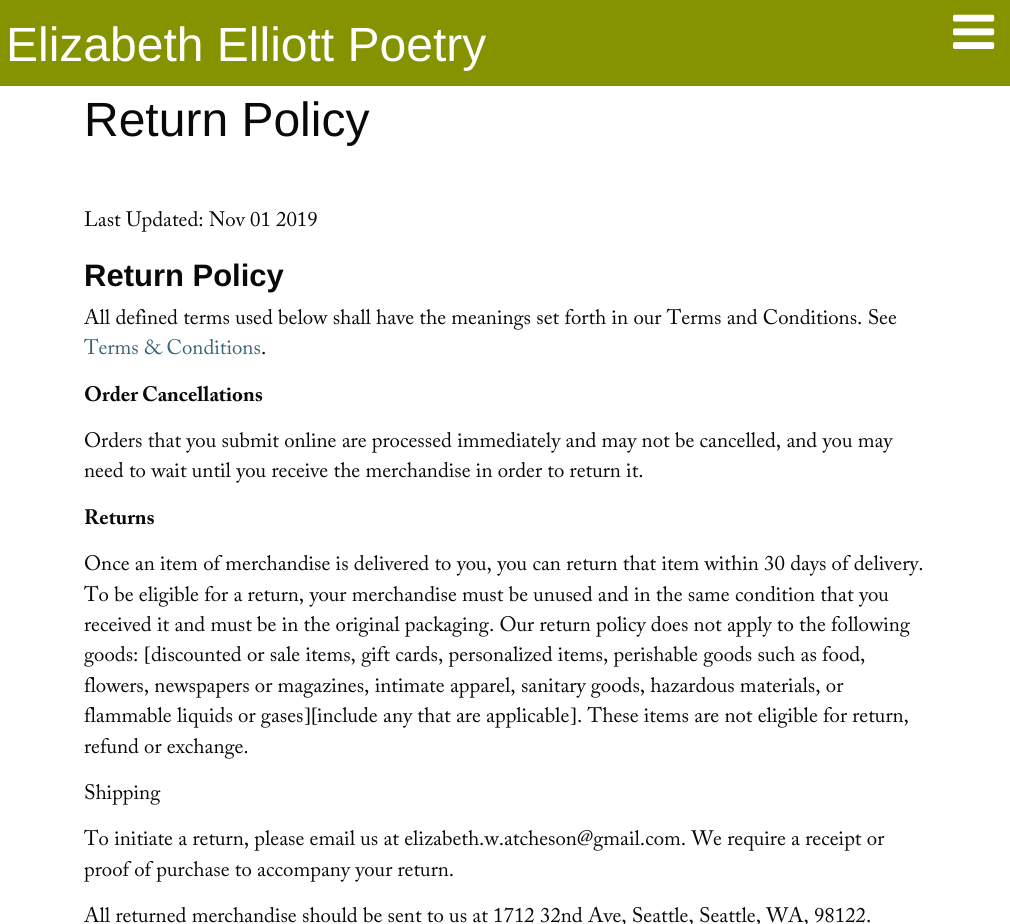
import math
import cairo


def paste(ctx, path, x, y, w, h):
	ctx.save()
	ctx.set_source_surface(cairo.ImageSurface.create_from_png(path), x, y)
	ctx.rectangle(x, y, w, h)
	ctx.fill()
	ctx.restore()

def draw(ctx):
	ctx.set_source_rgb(1, 1, 1)
	ctx.paint()
	ctx.set_source_rgb(0.522, 0.576, 0)
	ctx.rectangle(0, 0, 1010, 86)
	ctx.fill()
	ctx.select_font_face('Liberation Sans')
	ctx.set_font_size(48)
	ctx.set_source_rgb(1, 1, 1)
	ctx.move_to(6, 61)
	ctx.show_text('Elizabeth Elliott Poetry')
	paste(ctx, 'media/1.png', 953, 14, 42, 35)
	ctx.set_source_rgb(0.039, 0.039, 0.039)
	ctx.move_to(84, 136)
	ctx.show_text('Return Policy')
	ctx.select_font_face('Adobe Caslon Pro')
	ctx.set_font_size(20.8)
	ctx.move_to(84, 226)
	ctx.show_text('Last Updated: Nov 01 2019')
	ctx.select_font_face('Liberation Sans', cairo.FONT_SLANT_NORMAL, cairo.FONT_WEIGHT_BOLD)
	ctx.set_font_size(31)
	ctx.move_to(84, 286)
	ctx.show_text('Return Policy')
	ctx.select_font_face('Adobe Caslon Pro')
	ctx.set_font_size(20.8)
	ctx.move_to(84, 324)
	ctx.show_text('All defined terms used below shall have the meanings set forth in our Terms and Conditions. See')
	ctx.set_source_rgb(0.235, 0.392, 0.471)
	ctx.move_to(84, 354)
	ctx.show_text('Terms & Conditions')
	ctx.set_source_rgb(0.039, 0.039, 0.039)
	ctx.move_to(261, 354)
	ctx.show_text('.')
	ctx.select_font_face('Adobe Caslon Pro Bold', cairo.FONT_SLANT_NORMAL, cairo.FONT_WEIGHT_BOLD)
	ctx.move_to(84, 401)
	ctx.show_text('Order Cancellations')
	ctx.select_font_face('Adobe Caslon Pro')
	ctx.move_to(84, 447)
	ctx.show_text('Orders that you submit online are processed immediately and may not be cancelled, and you may')
	ctx.move_to(84, 477)
	ctx.show_text('need to wait until you receive the merchandise in order to return it.')
	ctx.select_font_face('Adobe Caslon Pro Bold', cairo.FONT_SLANT_NORMAL, cairo.FONT_WEIGHT_BOLD)
	ctx.move_to(84, 524)
	ctx.show_text('Returns')
	ctx.select_font_face('Adobe Caslon Pro')
	for x, y, s in [
		(84, 570, 'Once an item of merchandise is delivered to you, you can return that item within 30 days of delivery.'),
		(84, 601, 'To be eligible for a return, your merchandise must be unused and in the same condition that you'),
		(84, 631, 'received it and must be in the original packaging. Our return policy does not apply to the following'),
		(84, 661, 'goods:'),
	]:
		ctx.move_to(x, y)
		ctx.show_text(s)
	ctx.select_font_face('Liberation Serif')
	ctx.move_to(144, 661)
	ctx.show_text('[')
	ctx.select_font_face('Adobe Caslon Pro')
	for x, y, s in [
		(151, 661, 'discounted or sale items, gift cards, personalized items, perishable goods such as food,'),
		(84, 692, 'flowers, newspapers or magazines, intimate apparel, sanitary goods, hazardous materials, or'),
		(84, 722, 'flammable liquids or gases'),
	]:
		ctx.move_to(x, y)
		ctx.show_text(s)
	ctx.select_font_face('Liberation Serif')
	ctx.move_to(304, 722)
	ctx.show_text('][')
	ctx.select_font_face('Adobe Caslon Pro')
	ctx.move_to(317, 722)
	ctx.show_text('include any that are applicable')
	ctx.select_font_face('Liberation Serif')
	ctx.move_to(570, 722)
	ctx.show_text(']')
	ctx.select_font_face('Adobe Caslon Pro')
	for x, y, s in [
		(577, 722, '. These items are not eligible for return,'),
		(84, 753, 'refund or exchange.'),
		(84, 799, 'Shipping'),
		(84, 845, 'To initiate a return, please email us at elizabeth.w.atcheson@gmail.com. We require a receipt or'),
		(84, 876, 'proof of purchase to accompany your return.'),
		(84, 922, 'All returned merchandise should be sent to us at 1712 32nd Ave, Seattle, Seattle, WA, 98122.'),
	]:
		ctx.move_to(x, y)
		ctx.show_text(s)


surface = cairo.ImageSurface(cairo.FORMAT_RGB24, 1010, 924)
ctx = cairo.Context(surface)
options = cairo.FontOptions()
options.set_hint_metrics(cairo.HINT_METRICS_OFF)
options.set_hint_style(cairo.HINT_STYLE_NONE)
ctx.set_font_options(options)
ctx.set_miter_limit(4)
draw(ctx)
surface.write_to_png('image.png')
